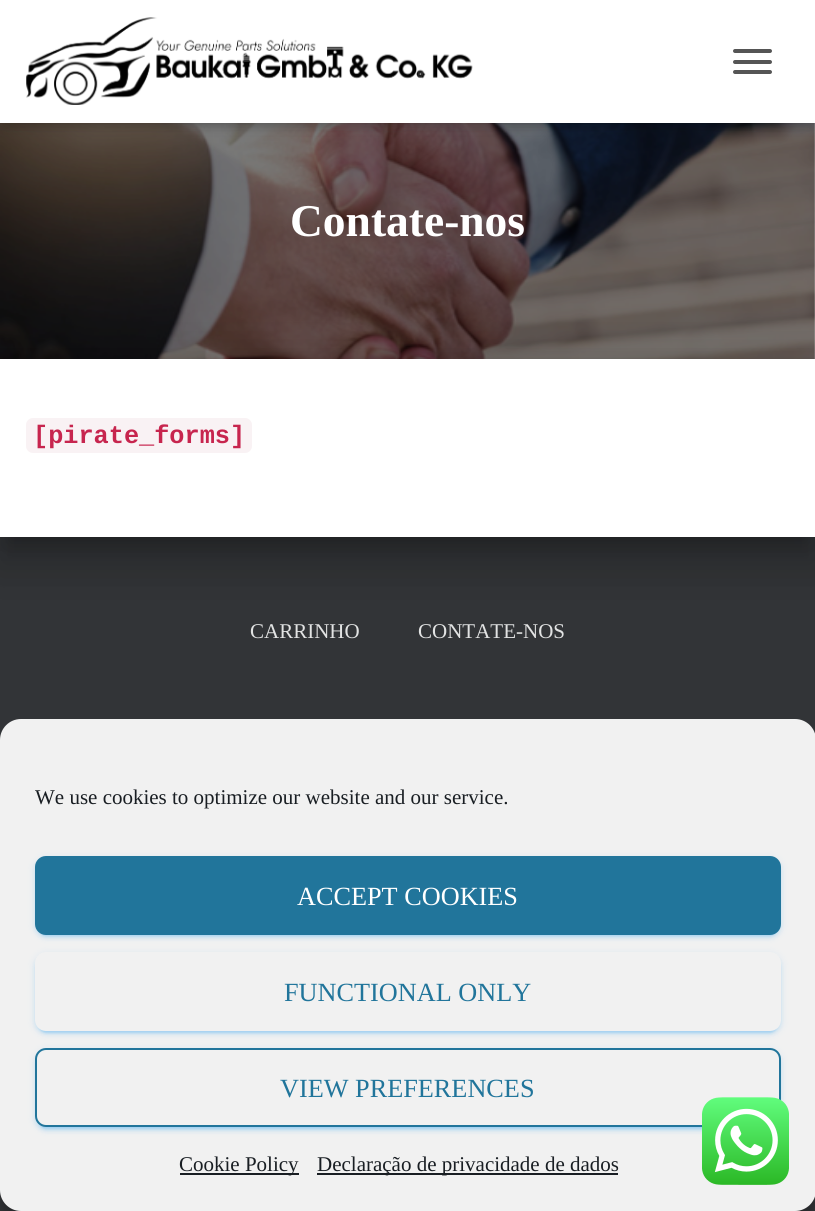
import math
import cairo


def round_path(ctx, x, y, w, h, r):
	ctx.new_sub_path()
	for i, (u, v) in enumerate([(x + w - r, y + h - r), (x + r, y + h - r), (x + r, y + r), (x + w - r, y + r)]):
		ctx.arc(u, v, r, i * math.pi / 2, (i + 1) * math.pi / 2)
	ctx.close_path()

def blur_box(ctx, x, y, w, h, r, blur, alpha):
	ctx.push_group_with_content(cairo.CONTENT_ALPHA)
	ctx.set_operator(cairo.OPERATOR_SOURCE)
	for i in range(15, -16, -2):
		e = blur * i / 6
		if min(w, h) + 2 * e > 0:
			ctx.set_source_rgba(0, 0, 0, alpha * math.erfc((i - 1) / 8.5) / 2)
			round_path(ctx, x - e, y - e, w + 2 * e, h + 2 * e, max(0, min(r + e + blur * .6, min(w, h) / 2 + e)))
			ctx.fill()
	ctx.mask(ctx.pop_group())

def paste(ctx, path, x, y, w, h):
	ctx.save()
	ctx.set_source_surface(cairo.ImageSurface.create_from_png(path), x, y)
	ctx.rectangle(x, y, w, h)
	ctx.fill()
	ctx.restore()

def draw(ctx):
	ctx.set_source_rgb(1, 1, 1)
	ctx.paint()
	paste(ctx, 'media/2.png', 0, 123, 815, 236)
	ctx.set_source_rgb(0, 0, 0)
	blur_box(ctx, 4, 11, 808, 115, 0, 4.5, 0.1)
	blur_box(ctx, 0, 2, 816, 122, 0, 9, 0.12)
	blur_box(ctx, 11, 12, 794, 102, 0, 9, 0.42)
	ctx.set_source_rgb(1, 1, 1)
	ctx.rectangle(0, 0, 815, 123)
	ctx.fill()
	paste(ctx, 'media/1.png', 26, 17, 447, 88)
	ctx.set_source_rgb(0.333, 0.333, 0.333)
	round_path(ctx, 733, 49, 39, 4, 2)
	ctx.fill()
	round_path(ctx, 733, 60, 39, 4, 2)
	ctx.fill()
	round_path(ctx, 733, 70, 39, 4, 2)
	ctx.fill()
	ctx.select_font_face('Liberation Serif', cairo.FONT_SLANT_NORMAL, cairo.FONT_WEIGHT_BOLD)
	ctx.set_font_size(45.5)
	ctx.set_source_rgb(1, 1, 1)
	ctx.move_to(290, 236)
	ctx.show_text('Contate-nos')
	ctx.set_source_rgb(0.196, 0.204, 0.216)
	ctx.rectangle(0, 537, 815, 674)
	ctx.fill()
	ctx.set_source_rgb(0, 0, 0)
	blur_box(ctx, 9, 382, 798, 161, 0, 9, 0.2)
	blur_box(ctx, -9, 361, 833, 196, 0, 26, 0.12)
	blur_box(ctx, -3, 383, 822, 186, 0, 21, 0.14)
	ctx.set_source_rgb(1, 1, 1)
	ctx.rectangle(0, 359, 815, 178)
	ctx.fill()
	ctx.set_source_rgb(0.976, 0.949, 0.957)
	round_path(ctx, 26, 418, 226, 35, 7)
	ctx.fill()
	ctx.select_font_face('Liberation Mono', cairo.FONT_SLANT_NORMAL, cairo.FONT_WEIGHT_BOLD)
	ctx.set_font_size(25.25)
	ctx.set_source_rgb(0.78, 0.145, 0.306)
	ctx.move_to(33, 443)
	ctx.show_text('[pirate_forms]')
	ctx.select_font_face('Liberation Serif')
	ctx.set_font_size(21)
	ctx.set_source_rgb(0.886, 0.89, 0.89)
	ctx.move_to(250, 638)
	ctx.show_text('CARRINHO')
	ctx.move_to(418, 638)
	ctx.show_text('CONTATE-NOS')
	ctx.set_source_rgb(0, 0, 0)
	blur_box(ctx, 0, 730, 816, 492, 21, 5, 0.23)
	ctx.set_source_rgb(0.945, 0.945, 0.945)
	round_path(ctx, 0, 719, 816, 492, 21)
	ctx.fill()
	ctx.set_source_rgb(0.098, 0.118, 0.137)
	ctx.move_to(35, 804)
	ctx.show_text('We use cookies to optimize our website and our service.')
	ctx.set_source_rgb(0.118, 0.604, 0.929)
	blur_box(ctx, 35, 858, 746, 78, 11, 4.5, 0.12)
	blur_box(ctx, 39, 865, 738, 71, 7, 1, 0.2)
	blur_box(ctx, 35, 859, 746, 79, 11, 2, 0.14)
	ctx.set_source_rgb(0.129, 0.459, 0.608)
	round_path(ctx, 36, 857, 744, 77, 10)
	ctx.fill_preserve()
	ctx.stroke()
	ctx.set_font_size(26.25)
	ctx.set_source_rgb(1, 1, 1)
	ctx.move_to(297, 905)
	ctx.show_text('ACCEPT COOKIES')
	ctx.set_source_rgb(0.118, 0.604, 0.929)
	blur_box(ctx, 35, 954, 746, 79, 11, 4.5, 0.12)
	blur_box(ctx, 39, 961, 738, 72, 7, 1, 0.2)
	blur_box(ctx, 35, 956, 746, 78, 11, 2, 0.14)
	ctx.set_source_rgb(0.945, 0.945, 0.945)
	round_path(ctx, 36, 953, 744, 77, 10)
	ctx.fill_preserve()
	ctx.stroke()
	ctx.set_source_rgb(0.129, 0.459, 0.608)
	ctx.move_to(284, 1001)
	ctx.show_text('FUNCTIONAL ONLY')
	ctx.set_source_rgb(0.118, 0.604, 0.929)
	blur_box(ctx, 35, 1050, 746, 79, 11, 4.5, 0.12)
	blur_box(ctx, 39, 1057, 738, 72, 7, 1, 0.2)
	blur_box(ctx, 35, 1052, 746, 79, 11, 2, 0.14)
	ctx.set_source_rgb(0.945, 0.945, 0.945)
	round_path(ctx, 36, 1049, 744, 77, 10)
	ctx.fill_preserve()
	ctx.set_source_rgb(0.129, 0.459, 0.608)
	ctx.stroke()
	ctx.move_to(280, 1097)
	ctx.show_text('VIEW PREFERENCES')
	ctx.set_source_rgb(0.098, 0.118, 0.137)
	ctx.rectangle(180, 1173, 119, 2)
	ctx.fill()
	ctx.set_font_size(21)
	ctx.move_to(179, 1171)
	ctx.show_text('Cookie Policy')
	ctx.rectangle(317, 1173, 301, 2)
	ctx.fill()
	ctx.move_to(317, 1171)
	ctx.show_text('Declaração de privacidade de dados')
	paste(ctx, 'media/3.png', 702, 1097, 87, 88)


surface = cairo.ImageSurface(cairo.FORMAT_RGB24, 815, 1211)
ctx = cairo.Context(surface)
options = cairo.FontOptions()
options.set_hint_metrics(cairo.HINT_METRICS_OFF)
options.set_hint_style(cairo.HINT_STYLE_NONE)
ctx.set_font_options(options)
ctx.set_miter_limit(4)
draw(ctx)
surface.write_to_png('image.png')
